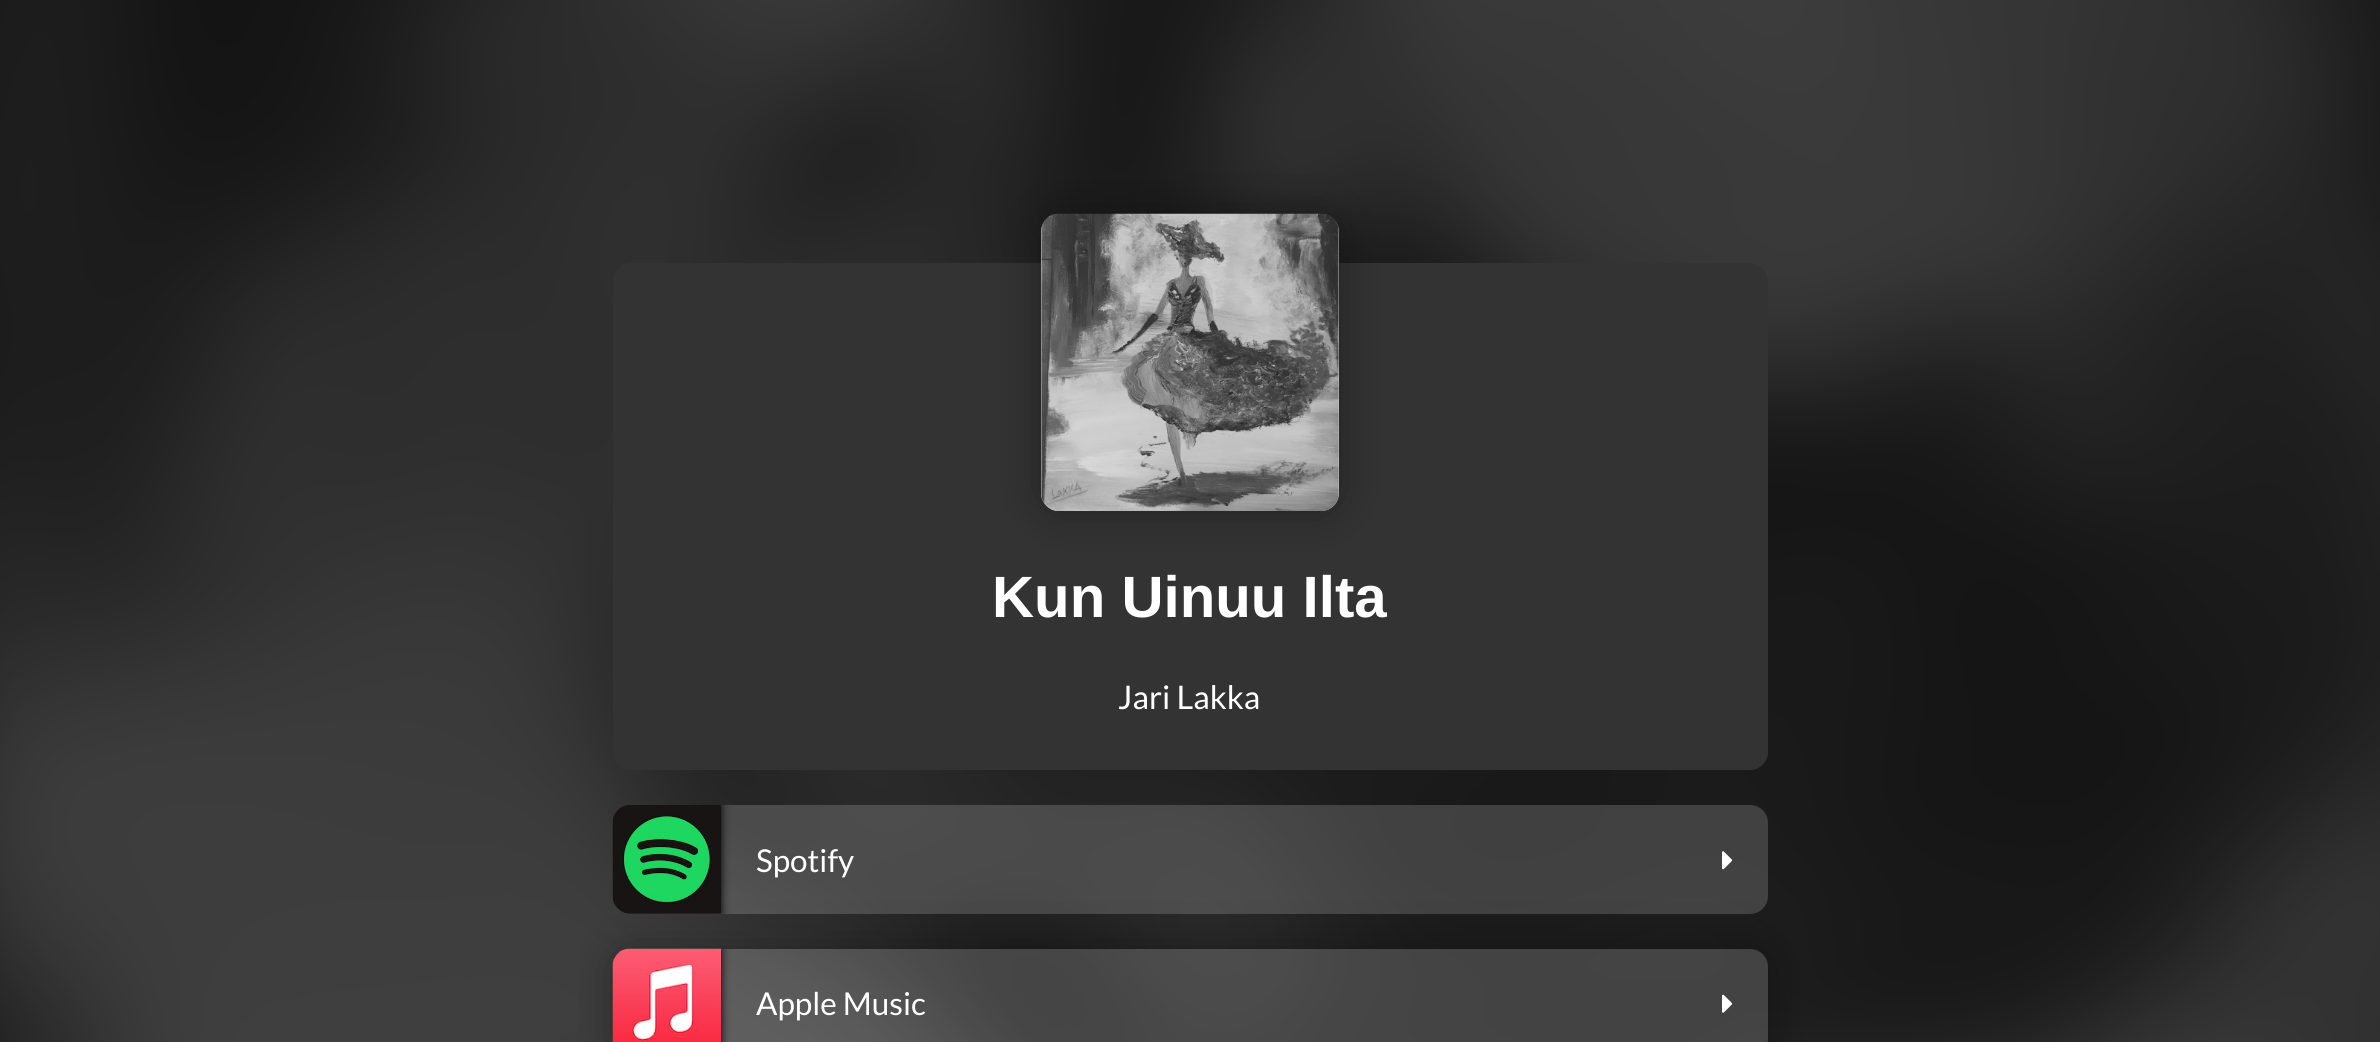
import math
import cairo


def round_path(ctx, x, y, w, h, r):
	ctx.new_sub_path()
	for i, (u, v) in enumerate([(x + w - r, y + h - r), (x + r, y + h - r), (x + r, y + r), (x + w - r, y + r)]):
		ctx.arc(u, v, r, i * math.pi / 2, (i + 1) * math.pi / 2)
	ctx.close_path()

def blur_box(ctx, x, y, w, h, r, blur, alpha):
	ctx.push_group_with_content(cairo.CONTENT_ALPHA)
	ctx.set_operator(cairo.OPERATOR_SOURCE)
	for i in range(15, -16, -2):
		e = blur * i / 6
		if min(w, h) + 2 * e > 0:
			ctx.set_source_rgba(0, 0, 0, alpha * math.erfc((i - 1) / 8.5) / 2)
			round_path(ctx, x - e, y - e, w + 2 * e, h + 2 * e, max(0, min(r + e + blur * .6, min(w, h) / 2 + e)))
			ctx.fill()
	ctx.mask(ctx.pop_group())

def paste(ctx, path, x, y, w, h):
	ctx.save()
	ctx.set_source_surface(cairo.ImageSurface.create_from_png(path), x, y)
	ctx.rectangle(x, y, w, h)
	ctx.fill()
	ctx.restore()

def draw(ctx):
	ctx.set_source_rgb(0, 0, 0)
	ctx.paint()
	paste(ctx, 'media/1.png', 0, 0, 2380, 1042)
	ctx.set_source_rgb(0.2, 0.2, 0.2)
	round_path(ctx, 613, 263, 1155, 507, 18)
	ctx.fill()
	ctx.set_source_rgb(0, 0, 0)
	blur_box(ctx, 1041, 214, 298, 297, 18, 22, 0.35)
	ctx.set_source_rgb(0.8, 0.8, 0.8)
	round_path(ctx, 1041, 214, 298, 297, 18)
	ctx.fill()
	paste(ctx, 'media/2.png', 1041, 213, 298, 298)
	ctx.select_font_face('Liberation Sans', cairo.FONT_SLANT_NORMAL, cairo.FONT_WEIGHT_BOLD)
	ctx.set_font_size(58.25)
	ctx.set_source_rgb(1, 1, 1)
	ctx.move_to(992, 617)
	ctx.show_text('Kun Uinuu Ilta')
	ctx.select_font_face('Lato')
	ctx.set_font_size(32.5)
	ctx.move_to(1118, 709)
	ctx.show_text('Jari Lakka')
	ctx.set_source_rgba(1, 1, 1, 0.17)
	round_path(ctx, 613, 805, 1155, 109, 18)
	ctx.fill()
	ctx.save()
	round_path(ctx, 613, 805, 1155, 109, 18)
	ctx.clip()
	ctx.set_source_rgb(0, 0, 0)
	blur_box(ctx, 613, 805, 108, 109, 0, 4.5, 1)
	ctx.restore()
	paste(ctx, 'media/3.png', 612, 805, 109, 109)
	ctx.set_font_size(31.5)
	ctx.set_source_rgb(1, 1, 1)
	ctx.move_to(756, 872)
	ctx.show_text('Spotify')
	paste(ctx, 'media/4.png', 1722, 851, 11, 19)
	ctx.save()
	ctx.rectangle(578, 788, 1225, 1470)
	ctx.clip()
	ctx.set_fill_rule(cairo.FILL_RULE_EVEN_ODD)
	ctx.new_path()
	ctx.move_to(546, 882)
	ctx.line_to(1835, 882)
	ctx.line_to(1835, 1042)
	ctx.line_to(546, 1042)
	ctx.close_path()
	ctx.move_to(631, 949)
	ctx.line_to(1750, 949)
	ctx.curve_to(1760, 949, 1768, 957, 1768, 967)
	ctx.line_to(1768, 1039)
	ctx.curve_to(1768, 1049, 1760, 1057, 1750, 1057)
	ctx.line_to(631, 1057)
	ctx.curve_to(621, 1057, 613, 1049, 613, 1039)
	ctx.line_to(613, 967)
	ctx.curve_to(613, 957, 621, 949, 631, 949)
	ctx.close_path()
	ctx.clip()
	ctx.set_source_rgb(0, 0, 0)
	blur_box(ctx, 613, 949, 1155, 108, 18, 22, 0.35)
	ctx.restore()
	ctx.set_source_rgba(1, 1, 1, 0.17)
	round_path(ctx, 613, 949, 1155, 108, 18)
	ctx.fill()
	ctx.save()
	round_path(ctx, 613, 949, 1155, 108, 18)
	ctx.clip()
	ctx.set_source_rgb(0, 0, 0)
	blur_box(ctx, 613, 949, 108, 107, 0, 4.5, 1)
	ctx.restore()
	paste(ctx, 'media/5.png', 612, 948, 109, 94)
	ctx.set_source_rgb(1, 1, 1)
	ctx.move_to(756, 1015)
	ctx.show_text('Apple Music')
	paste(ctx, 'media/6.png', 1722, 994, 11, 19)


surface = cairo.ImageSurface(cairo.FORMAT_RGB24, 2380, 1042)
ctx = cairo.Context(surface)
options = cairo.FontOptions()
options.set_hint_metrics(cairo.HINT_METRICS_OFF)
options.set_hint_style(cairo.HINT_STYLE_NONE)
ctx.set_font_options(options)
ctx.set_miter_limit(4)
draw(ctx)
surface.write_to_png('image.png')
